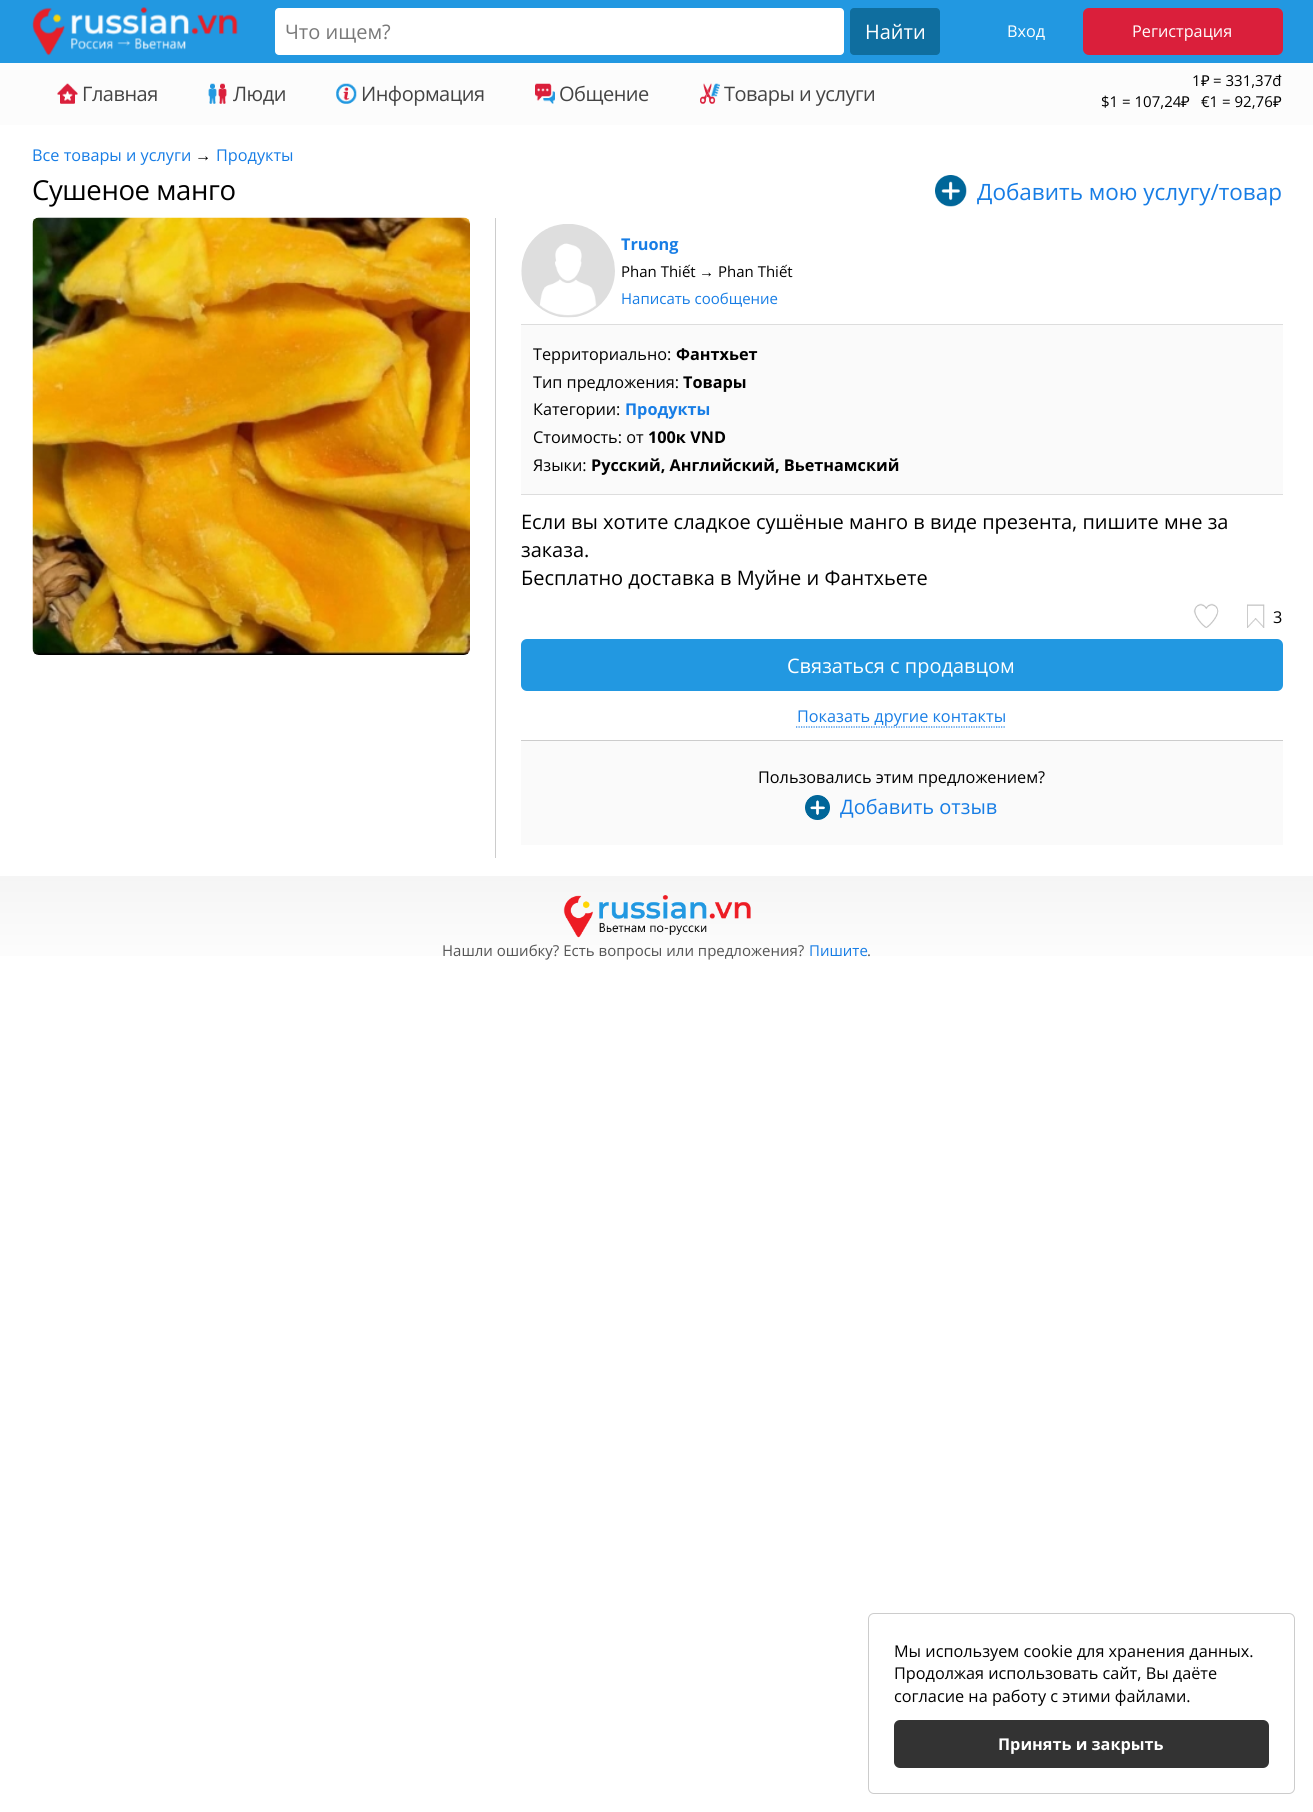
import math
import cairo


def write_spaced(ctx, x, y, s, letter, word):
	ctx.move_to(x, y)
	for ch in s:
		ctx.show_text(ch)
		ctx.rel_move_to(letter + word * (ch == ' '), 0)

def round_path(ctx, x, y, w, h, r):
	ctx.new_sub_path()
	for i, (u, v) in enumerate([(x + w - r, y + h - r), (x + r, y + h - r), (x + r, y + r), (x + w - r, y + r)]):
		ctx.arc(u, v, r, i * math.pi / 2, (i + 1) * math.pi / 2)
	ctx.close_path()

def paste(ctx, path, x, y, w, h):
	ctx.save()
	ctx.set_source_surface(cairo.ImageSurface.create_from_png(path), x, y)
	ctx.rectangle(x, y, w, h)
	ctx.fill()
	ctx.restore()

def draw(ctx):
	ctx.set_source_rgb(1, 1, 1)
	ctx.paint()
	ctx.set_source_rgb(0.133, 0.596, 0.882)
	ctx.rectangle(0, 0, 1313, 63)
	ctx.fill()
	paste(ctx, 'media/1.png', 32, 7, 206, 49)
	ctx.set_source_rgb(1, 1, 1)
	round_path(ctx, 275, 8, 569, 47, 4)
	ctx.fill()
	ctx.select_font_face('Open Sans')
	ctx.set_font_size(20)
	ctx.set_source_rgb(0.475, 0.475, 0.475)
	ctx.move_to(285, 39)
	ctx.show_text('Что ищем?')
	ctx.set_source_rgb(0.059, 0.431, 0.624)
	round_path(ctx, 850, 8, 90, 47, 4)
	ctx.fill()
	ctx.set_source_rgb(1, 1, 1)
	ctx.move_to(865, 39)
	ctx.show_text('Найти')
	ctx.set_font_size(16.25)
	ctx.move_to(1007, 37)
	ctx.show_text('Вход')
	ctx.set_source_rgb(0.855, 0.122, 0.231)
	round_path(ctx, 1083, 8, 200, 47, 6)
	ctx.fill()
	ctx.set_source_rgb(1, 1, 1)
	ctx.move_to(1132, 37)
	ctx.show_text('Регистрация')
	ctx.set_source_rgb(0.988, 0.988, 0.988)
	ctx.rectangle(0, 63, 1313, 62)
	ctx.fill()
	paste(ctx, 'media/2.png', 57, 83, 21, 21)
	ctx.set_font_size(20)
	ctx.set_source_rgb(0.267, 0.267, 0.267)
	write_spaced(ctx, 82, 101, 'Главная', -0.5, 0)
	paste(ctx, 'media/3.png', 208, 83, 19, 21)
	write_spaced(ctx, 233, 101, 'Люди', -0.5, 0)
	paste(ctx, 'media/4.png', 336, 83, 21, 21)
	write_spaced(ctx, 361, 101, 'Информация', -0.5, 0)
	paste(ctx, 'media/5.png', 535, 83, 20, 21)
	write_spaced(ctx, 559, 101, 'Общение', -0.5, 0)
	paste(ctx, 'media/6.png', 700, 83, 20, 21)
	write_spaced(ctx, 724, 101, 'Товары и услуги', -0.5, 0)
	ctx.set_font_size(15)
	ctx.set_source_rgb(0, 0, 0)
	ctx.move_to(1192, 86)
	ctx.show_text('1')
	ctx.select_font_face('Noto Sans')
	ctx.move_to(1201, 86)
	ctx.show_text('₽')
	ctx.select_font_face('Open Sans')
	ctx.move_to(1213, 86)
	ctx.show_text('= 331,37đ')
	ctx.move_to(1101, 107)
	ctx.show_text('$1 = 107,24')
	ctx.select_font_face('Noto Sans')
	ctx.move_to(1181, 107)
	ctx.show_text('₽')
	ctx.select_font_face('Open Sans')
	ctx.move_to(1201, 107)
	ctx.show_text('€1 = 92,76')
	ctx.select_font_face('Noto Sans')
	ctx.move_to(1273, 107)
	ctx.show_text('₽')
	ctx.select_font_face('Open Sans')
	ctx.set_font_size(16.25)
	ctx.set_source_rgb(0.09, 0.49, 0.898)
	ctx.move_to(32, 161)
	ctx.show_text('Все товары и услуги')
	ctx.select_font_face('Liberation Serif')
	ctx.set_source_rgb(0, 0, 0)
	ctx.move_to(195, 161)
	ctx.show_text('→')
	ctx.select_font_face('Open Sans')
	ctx.set_source_rgb(0.09, 0.49, 0.898)
	ctx.move_to(216, 161)
	ctx.show_text('Продукты')
	ctx.set_font_size(27.5)
	ctx.set_source_rgb(0, 0, 0)
	write_spaced(ctx, 32, 200, 'Сушеное манго', -0.4, 0)
	paste(ctx, 'media/7.png', 935, 175, 32, 32)
	ctx.set_font_size(22.5)
	ctx.set_source_rgb(0.09, 0.49, 0.898)
	ctx.move_to(977, 200)
	ctx.show_text('Добавить мою услугу/товар')
	paste(ctx, 'media/8.png', 32, 217, 438, 438)
	ctx.set_source_rgb(0.8, 0.8, 0.8)
	ctx.rectangle(495, 218, 1, 640)
	ctx.fill()
	paste(ctx, 'media/9.png', 521, 224, 94, 94)
	ctx.select_font_face('Open Sans', cairo.FONT_SLANT_NORMAL, cairo.FONT_WEIGHT_BOLD)
	ctx.set_font_size(16.25)
	ctx.set_source_rgb(0.09, 0.49, 0.898)
	ctx.move_to(621, 250)
	ctx.show_text('Truong')
	ctx.select_font_face('Open Sans')
	ctx.set_font_size(15)
	ctx.set_source_rgb(0, 0, 0)
	ctx.move_to(621, 277)
	ctx.show_text('Phan Thiết')
	ctx.select_font_face('Liberation Serif')
	ctx.move_to(699, 277)
	ctx.show_text('→')
	ctx.select_font_face('Open Sans')
	ctx.move_to(718, 277)
	ctx.show_text('Phan Thiết')
	ctx.set_source_rgb(0.09, 0.49, 0.898)
	ctx.move_to(621, 304)
	ctx.show_text('Написать сообщение')
	ctx.set_source_rgb(0.98, 0.98, 0.98)
	ctx.rectangle(521, 325, 762, 169)
	ctx.fill()
	ctx.set_source_rgb(0.867, 0.867, 0.867)
	ctx.rectangle(521, 324, 762, 1)
	ctx.rectangle(521, 494, 762, 1)
	ctx.fill()
	ctx.set_font_size(16.25)
	ctx.set_source_rgb(0, 0, 0)
	ctx.move_to(533, 360)
	ctx.show_text('Территориально:')
	ctx.select_font_face('Open Sans', cairo.FONT_SLANT_NORMAL, cairo.FONT_WEIGHT_BOLD)
	ctx.move_to(676, 360)
	ctx.show_text('Фантхьет')
	ctx.select_font_face('Open Sans')
	ctx.move_to(533, 388)
	ctx.show_text('Тип предложения:')
	ctx.select_font_face('Open Sans', cairo.FONT_SLANT_NORMAL, cairo.FONT_WEIGHT_BOLD)
	ctx.move_to(683, 388)
	ctx.show_text('Товары')
	ctx.select_font_face('Open Sans')
	ctx.move_to(533, 415)
	ctx.show_text('Категории:')
	ctx.select_font_face('Open Sans', cairo.FONT_SLANT_NORMAL, cairo.FONT_WEIGHT_BOLD)
	ctx.set_source_rgb(0.09, 0.49, 0.898)
	ctx.move_to(625, 415)
	ctx.show_text('Продукты')
	ctx.select_font_face('Open Sans')
	ctx.set_source_rgb(0, 0, 0)
	ctx.move_to(533, 443)
	ctx.show_text('Стоимость: от')
	ctx.select_font_face('Open Sans', cairo.FONT_SLANT_NORMAL, cairo.FONT_WEIGHT_BOLD)
	ctx.move_to(648, 443)
	ctx.show_text('100к VND')
	ctx.select_font_face('Open Sans')
	ctx.move_to(533, 471)
	ctx.show_text('Языки:')
	ctx.select_font_face('Open Sans', cairo.FONT_SLANT_NORMAL, cairo.FONT_WEIGHT_BOLD)
	ctx.move_to(591, 471)
	ctx.show_text('Русский, Английский, Вьетнамский')
	ctx.select_font_face('Open Sans')
	ctx.set_font_size(20)
	for x, y, s in [
		(521, 529, 'Если вы хотите сладкое сушёные манго в виде презента, пишите мне за'),
		(521, 557, 'заказа.'),
		(521, 585, 'Бесплатно доставка в Муйне и Фантхьете'),
	]:
		ctx.move_to(x, y)
		ctx.show_text(s)
	paste(ctx, 'media/10.png', 1193, 603, 26, 25)
	paste(ctx, 'media/11.png', 1247, 604, 18, 24)
	ctx.set_font_size(16.25)
	ctx.move_to(1273, 623)
	ctx.show_text('3')
	ctx.set_source_rgb(0.133, 0.596, 0.882)
	round_path(ctx, 521, 639, 762, 52, 6)
	ctx.fill()
	ctx.set_font_size(20)
	ctx.set_source_rgb(1, 1, 1)
	ctx.move_to(787, 673)
	ctx.show_text('Связаться с продавцом')
	ctx.set_font_size(16.25)
	ctx.set_source_rgb(0.09, 0.49, 0.898)
	ctx.move_to(797, 722)
	ctx.show_text('Показать другие контакты')
	ctx.new_path()
	ctx.move_to(796, 727)
	ctx.line_to(1006, 727)
	ctx.set_line_width(1.2)
	ctx.set_dash([1.25, 1.25])
	ctx.stroke()
	ctx.set_source_rgb(0.98, 0.98, 0.98)
	ctx.rectangle(521, 741, 762, 104)
	ctx.fill()
	ctx.set_source_rgb(0.8, 0.8, 0.8)
	ctx.rectangle(521, 740, 762, 1)
	ctx.fill()
	ctx.set_source_rgb(0, 0, 0)
	ctx.move_to(758, 783)
	ctx.show_text('Пользовались этим предложением?')
	paste(ctx, 'media/12.png', 805, 795, 25, 25)
	ctx.set_font_size(20)
	ctx.set_source_rgb(0.09, 0.49, 0.898)
	ctx.move_to(840, 814)
	ctx.show_text('Добавить отзыв')
	gradient = cairo.LinearGradient(657, 876, 657, 983)
	gradient.add_color_stop_rgba(0, 0.961, 0.961, 0.961, 1)
	gradient.add_color_stop_rgba(1, 1, 1, 1, 1)
	ctx.set_source(gradient)
	ctx.rectangle(0, 876, 1313, 80)
	ctx.fill()
	paste(ctx, 'media/13.png', 563, 895, 188, 43)
	ctx.set_font_size(15)
	ctx.set_source_rgb(0.333, 0.333, 0.333)
	ctx.move_to(442, 956)
	ctx.show_text('Нашли ошибку? Есть вопросы или предложения?')
	ctx.set_source_rgb(0.09, 0.49, 0.898)
	ctx.move_to(809, 956)
	ctx.show_text('Пишите')
	ctx.set_source_rgb(0.333, 0.333, 0.333)
	ctx.move_to(867, 956)
	ctx.show_text('.')
	round_path(ctx, 868.5, 1613.5, 426, 180, 5.5)
	ctx.set_source_rgb(0.8, 0.8, 0.8)
	ctx.set_line_width(1)
	ctx.set_dash([])
	ctx.stroke()
	ctx.set_font_size(16.25)
	ctx.set_source_rgb(0, 0, 0)
	for x, y, s in [
		(894, 1657, 'Мы используем cookie для хранения данных.'),
		(894, 1679, 'Продолжая использовать сайт, Вы даёте'),
		(894, 1702, 'согласие на работу с этими файлами.'),
	]:
		ctx.move_to(x, y)
		ctx.show_text(s)
	ctx.set_source_rgb(0.2, 0.2, 0.2)
	round_path(ctx, 894, 1720, 375, 48, 6)
	ctx.fill()
	ctx.select_font_face('Open Sans', cairo.FONT_SLANT_NORMAL, cairo.FONT_WEIGHT_BOLD)
	ctx.set_source_rgb(1, 1, 1)
	ctx.move_to(998, 1750)
	ctx.show_text('Принять и закрыть')


surface = cairo.ImageSurface(cairo.FORMAT_RGB24, 1313, 1812)
ctx = cairo.Context(surface)
options = cairo.FontOptions()
options.set_hint_metrics(cairo.HINT_METRICS_OFF)
options.set_hint_style(cairo.HINT_STYLE_NONE)
ctx.set_font_options(options)
ctx.set_miter_limit(4)
draw(ctx)
surface.write_to_png('image.png')
